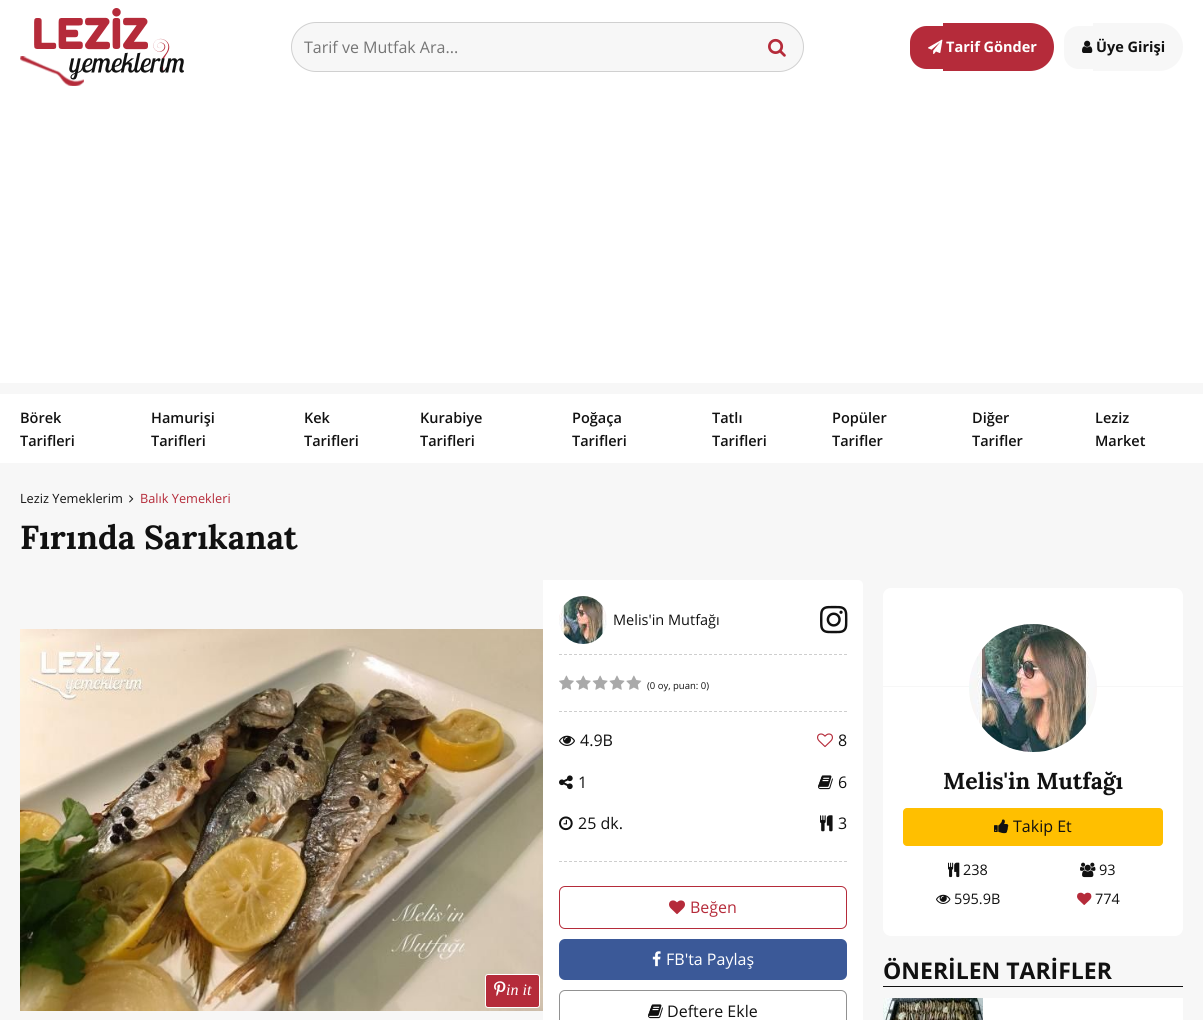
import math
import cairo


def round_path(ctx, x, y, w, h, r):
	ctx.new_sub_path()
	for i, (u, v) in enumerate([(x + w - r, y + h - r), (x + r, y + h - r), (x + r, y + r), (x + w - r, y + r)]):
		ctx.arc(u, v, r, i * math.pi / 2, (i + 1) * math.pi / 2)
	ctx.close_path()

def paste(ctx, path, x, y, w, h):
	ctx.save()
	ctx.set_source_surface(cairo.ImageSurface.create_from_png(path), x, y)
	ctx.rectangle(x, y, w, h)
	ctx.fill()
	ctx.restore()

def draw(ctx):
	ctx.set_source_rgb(0.965, 0.965, 0.965)
	ctx.paint()
	ctx.set_source_rgb(1, 1, 1)
	ctx.rectangle(0, 0, 1203, 383)
	ctx.fill()
	paste(ctx, 'media/1.png', 20, 8, 164, 78)
	ctx.set_source_rgb(0.965, 0.965, 0.965)
	round_path(ctx, 291.5, 22.5, 512, 49, 24.5)
	ctx.fill_preserve()
	ctx.set_source_rgb(0.816, 0.816, 0.816)
	ctx.set_line_width(1)
	ctx.stroke()
	ctx.select_font_face('Open Sans')
	ctx.set_font_size(16)
	ctx.set_source_rgb(0.459, 0.459, 0.459)
	ctx.move_to(304, 53)
	ctx.show_text('Tarif ve Mutfak Ara...')
	paste(ctx, 'media/2.png', 768, 38, 18, 19)
	ctx.set_source_rgb(0.71, 0.169, 0.227)
	ctx.new_path()
	ctx.move_to(926.5, 26)
	ctx.line_to(943, 26)
	ctx.line_to(943, 69)
	ctx.line_to(926.5, 69)
	ctx.curve_to(917.5, 69, 910, 61.5, 910, 52.5)
	ctx.line_to(910, 42.5)
	ctx.curve_to(910, 33.5, 917.5, 26, 926.5, 26)
	ctx.close_path()
	ctx.fill()
	ctx.rectangle(943, 23, 3, 48)
	ctx.fill()
	ctx.new_path()
	ctx.move_to(946, 23)
	ctx.line_to(1030, 23)
	ctx.curve_to(1043.5, 23, 1054, 33.5, 1054, 47)
	ctx.curve_to(1054, 60.5, 1043.5, 71, 1030, 71)
	ctx.line_to(946, 71)
	ctx.close_path()
	ctx.fill()
	paste(ctx, 'media/3.png', 928, 39, 15, 15)
	ctx.select_font_face('Open Sans', cairo.FONT_SLANT_NORMAL, cairo.FONT_WEIGHT_BOLD)
	ctx.set_font_size(14.5)
	ctx.set_source_rgb(1, 1, 1)
	ctx.move_to(946, 52)
	ctx.show_text('Tarif Gönder')
	ctx.set_source_rgb(0.965, 0.965, 0.965)
	ctx.new_path()
	ctx.move_to(1078.5, 26)
	ctx.line_to(1093, 26)
	ctx.line_to(1093, 69)
	ctx.line_to(1078.5, 69)
	ctx.curve_to(1070.5, 69, 1064, 62.5, 1064, 54.5)
	ctx.line_to(1064, 40.5)
	ctx.curve_to(1064, 32.5, 1070.5, 26, 1078.5, 26)
	ctx.close_path()
	ctx.fill()
	ctx.rectangle(1093, 23, 3, 48)
	ctx.fill()
	ctx.new_path()
	ctx.move_to(1096, 23)
	ctx.line_to(1159, 23)
	ctx.curve_to(1172.5, 23, 1183, 33.5, 1183, 47)
	ctx.curve_to(1183, 60.5, 1172.5, 71, 1159, 71)
	ctx.line_to(1096, 71)
	ctx.close_path()
	ctx.fill()
	paste(ctx, 'media/4.png', 1082, 40, 11, 13)
	ctx.set_source_rgb(0.067, 0.067, 0.067)
	ctx.move_to(1096, 52)
	ctx.show_text('Üye Girişi')
	ctx.set_source_rgb(1, 1, 1)
	ctx.rectangle(0, 394, 1203, 69)
	ctx.fill()
	ctx.select_font_face('Open Sans SemiBold')
	ctx.set_source_rgb(0.067, 0.067, 0.067)
	for x, y, s in [
		(20, 423, 'Börek'),
		(20, 446, 'Tarifleri'),
		(151, 423, 'Hamurişi'),
		(151, 446, 'Tarifleri'),
		(304, 423, 'Kek'),
		(304, 446, 'Tarifleri'),
		(420, 423, 'Kurabiye'),
		(420, 446, 'Tarifleri'),
		(572, 423, 'Poğaça'),
		(572, 446, 'Tarifleri'),
		(712, 423, 'Tatlı'),
		(712, 446, 'Tarifleri'),
		(832, 423, 'Popüler'),
		(832, 446, 'Tarifler'),
		(972, 423, 'Diğer'),
		(972, 446, 'Tarifler'),
		(1095, 423, 'Leziz'),
		(1095, 446, 'Market'),
	]:
		ctx.move_to(x, y)
		ctx.show_text(s)
	ctx.select_font_face('Open Sans')
	ctx.set_font_size(12.75)
	ctx.move_to(20, 503)
	ctx.show_text('Leziz Yemeklerim')
	paste(ctx, 'media/5.png', 129, 495, 5, 8)
	ctx.set_source_rgb(0.71, 0.169, 0.227)
	ctx.move_to(140, 503)
	ctx.show_text('Balık Yemekleri')
	ctx.select_font_face('Lora', cairo.FONT_SLANT_NORMAL, cairo.FONT_WEIGHT_BOLD)
	ctx.set_font_size(33.25)
	ctx.set_source_rgb(0.067, 0.067, 0.067)
	ctx.move_to(20, 549)
	ctx.show_text('Fırında Sarıkanat')
	paste(ctx, 'media/6.png', 20, 629, 523, 382)
	ctx.set_source_rgb(0.71, 0.169, 0.227)
	round_path(ctx, 485.5, 974.5, 54, 33, 2.5)
	ctx.fill_preserve()
	ctx.set_source_rgb(1, 1, 1)
	ctx.stroke()
	paste(ctx, 'media/7.png', 494, 981, 12, 16)
	ctx.select_font_face('Liberation Serif', cairo.FONT_SLANT_ITALIC)
	ctx.set_font_size(16)
	ctx.move_to(506, 995)
	ctx.show_text('in it')
	ctx.new_path()
	ctx.move_to(543, 580)
	ctx.line_to(858, 580)
	ctx.curve_to(861, 580, 863, 582, 863, 585)
	ctx.line_to(863, 1020)
	ctx.curve_to(863, 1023, 861, 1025, 858, 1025)
	ctx.line_to(543, 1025)
	ctx.close_path()
	ctx.fill()
	ctx.new_path()
	ctx.move_to(559, 654.5)
	ctx.line_to(847, 654.5)
	ctx.set_source_rgb(0.808, 0.808, 0.808)
	ctx.set_dash([3, 2])
	ctx.stroke()
	paste(ctx, 'media/8.png', 559, 596, 48, 48)
	ctx.select_font_face('Open Sans')
	ctx.set_font_size(14.5)
	ctx.set_source_rgb(0.067, 0.067, 0.067)
	ctx.move_to(613, 625)
	ctx.show_text('Melis\'in Mutfağı')
	paste(ctx, 'media/9.png', 820, 605, 28, 29)
	ctx.new_path()
	ctx.move_to(559, 711.5)
	ctx.line_to(847, 711.5)
	ctx.set_source_rgb(0.808, 0.808, 0.808)
	ctx.stroke()
	paste(ctx, 'media/10.png', 559, 675, 83, 15)
	ctx.set_font_size(9.5)
	ctx.set_source_rgb(0.067, 0.067, 0.067)
	ctx.move_to(647, 689)
	ctx.show_text('(0 oy, puan: 0)')
	ctx.new_path()
	ctx.move_to(559, 861.5)
	ctx.line_to(847, 861.5)
	ctx.set_source_rgb(0.808, 0.808, 0.808)
	ctx.stroke()
	paste(ctx, 'media/11.png', 559, 735, 16, 11)
	ctx.set_font_size(16)
	ctx.set_source_rgb(0.067, 0.067, 0.067)
	ctx.move_to(580, 746)
	ctx.show_text('4.9B')
	paste(ctx, 'media/12.png', 817, 733, 16, 15)
	ctx.move_to(838, 746)
	ctx.show_text('8')
	paste(ctx, 'media/13.png', 559, 775, 14, 15)
	ctx.move_to(578, 788)
	ctx.show_text('1')
	paste(ctx, 'media/14.png', 818, 775, 15, 15)
	ctx.move_to(838, 788)
	ctx.show_text('6')
	paste(ctx, 'media/15.png', 559, 816, 14, 15)
	ctx.move_to(578, 829)
	ctx.show_text('25 dk.')
	paste(ctx, 'media/16.png', 820, 815, 13, 17)
	ctx.move_to(838, 829)
	ctx.show_text('3')
	round_path(ctx, 559.5, 886.5, 287, 42, 5.5)
	ctx.set_source_rgb(0.71, 0.169, 0.227)
	ctx.set_dash([])
	ctx.stroke()
	paste(ctx, 'media/17.png', 669, 900, 16, 15)
	ctx.move_to(690, 913)
	ctx.show_text('Beğen')
	ctx.set_source_rgb(0.231, 0.349, 0.596)
	round_path(ctx, 559, 939, 288, 41, 6)
	ctx.fill()
	paste(ctx, 'media/18.png', 652, 951, 9, 16)
	ctx.set_source_rgb(1, 1, 1)
	ctx.move_to(666, 965)
	ctx.show_text('FB\'ta Paylaş')
	round_path(ctx, 559.5, 990.5, 287, 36, 5.5)
	ctx.set_source_rgb(0.569, 0.569, 0.569)
	ctx.stroke()
	paste(ctx, 'media/14.png', 648, 1004, 15, 15)
	ctx.set_source_rgb(0.067, 0.067, 0.067)
	ctx.move_to(667, 1017)
	ctx.show_text('Deftere Ekle')
	ctx.set_source_rgb(1, 1, 1)
	round_path(ctx, 883, 588, 300, 348, 8)
	ctx.fill()
	ctx.set_source_rgb(0.965, 0.965, 0.965)
	ctx.rectangle(883, 686, 300, 1)
	ctx.fill()
	paste(ctx, 'media/19.png', 969, 624, 128, 128)
	ctx.select_font_face('Lora', cairo.FONT_SLANT_NORMAL, cairo.FONT_WEIGHT_BOLD)
	ctx.set_font_size(23)
	ctx.set_source_rgb(0.067, 0.067, 0.067)
	ctx.move_to(943, 789)
	ctx.show_text('Melis\'in Mutfağı')
	ctx.set_source_rgb(1, 0.749, 0)
	round_path(ctx, 903, 808, 260, 38, 4)
	ctx.fill()
	paste(ctx, 'media/20.png', 994, 819, 15, 15)
	ctx.select_font_face('Open Sans')
	ctx.set_font_size(16)
	ctx.set_source_rgb(0.067, 0.067, 0.067)
	ctx.move_to(1013, 832)
	ctx.show_text('Takip Et')
	paste(ctx, 'media/21.png', 948, 862, 12, 16)
	ctx.set_font_size(14.5)
	ctx.move_to(963, 875)
	ctx.show_text('238')
	paste(ctx, 'media/22.png', 1080, 862, 16, 16)
	ctx.move_to(1099, 875)
	ctx.show_text('93')
	paste(ctx, 'media/23.png', 936, 894, 15, 10)
	ctx.move_to(954, 904)
	ctx.show_text('595.9B')
	paste(ctx, 'media/24.png', 1077, 892, 15, 13)
	ctx.move_to(1095, 904)
	ctx.show_text('774')
	ctx.rectangle(883, 986, 300, 1)
	ctx.fill()
	ctx.select_font_face('Open Sans', cairo.FONT_SLANT_NORMAL, cairo.FONT_WEIGHT_BOLD)
	ctx.set_font_size(23)
	ctx.move_to(883, 979)
	ctx.show_text('ÖNERİLEN TARİFLER')
	paste(ctx, 'media/25.png', 883, 998, 100, 22)
	ctx.set_source_rgb(1, 1, 1)
	ctx.rectangle(983, 998, 200, 22)
	ctx.fill()


surface = cairo.ImageSurface(cairo.FORMAT_RGB24, 1203, 1020)
ctx = cairo.Context(surface)
options = cairo.FontOptions()
options.set_hint_metrics(cairo.HINT_METRICS_OFF)
options.set_hint_style(cairo.HINT_STYLE_NONE)
ctx.set_font_options(options)
ctx.set_miter_limit(4)
draw(ctx)
surface.write_to_png('image.png')
